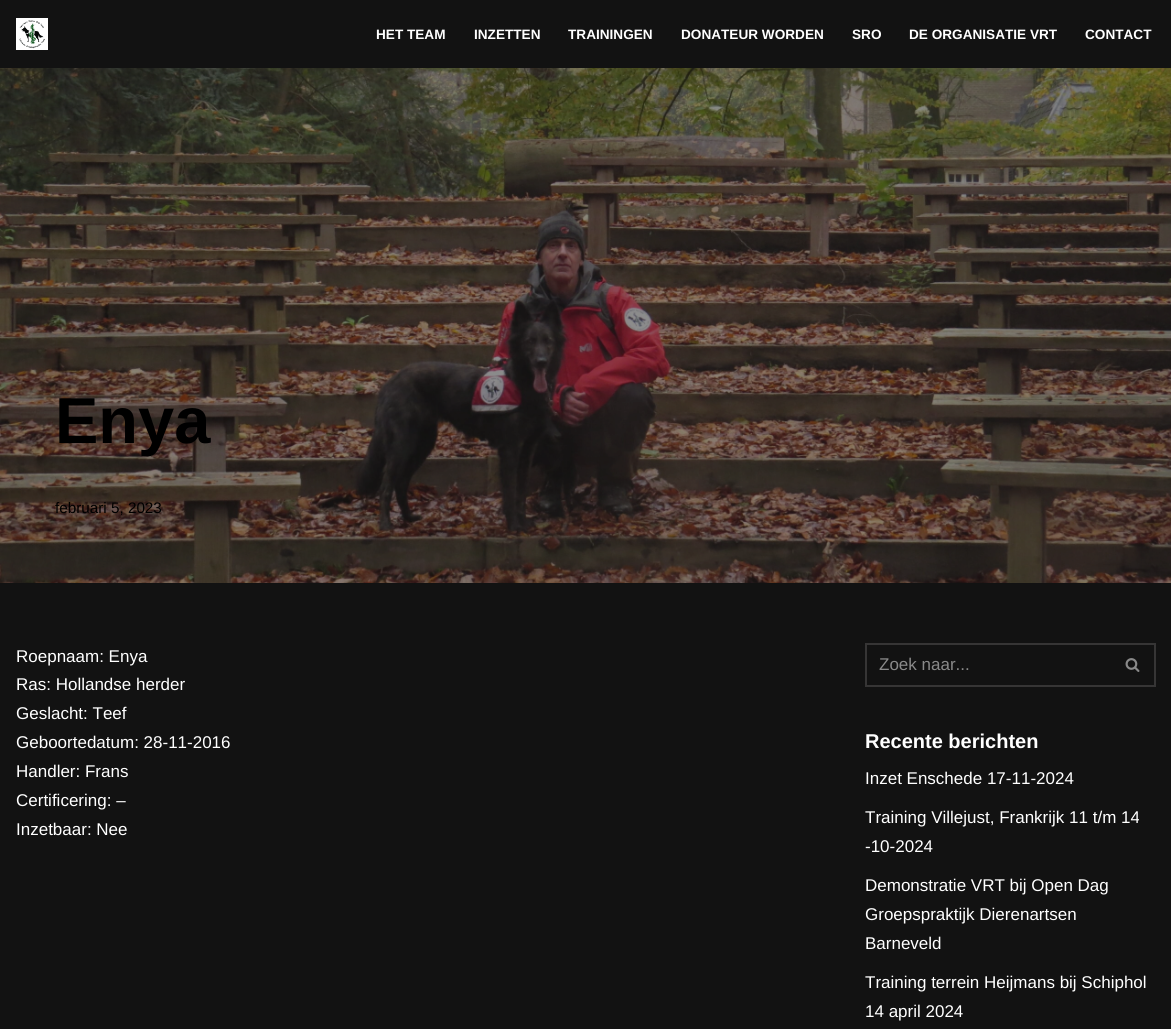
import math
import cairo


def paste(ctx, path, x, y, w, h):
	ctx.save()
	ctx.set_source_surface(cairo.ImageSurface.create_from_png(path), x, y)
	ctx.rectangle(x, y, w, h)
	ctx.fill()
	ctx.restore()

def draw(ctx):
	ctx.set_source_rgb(0.071, 0.071, 0.071)
	ctx.paint()
	paste(ctx, 'media/1.png', 16, 18, 32, 32)
	ctx.select_font_face('Liberation Sans', cairo.FONT_SLANT_NORMAL, cairo.FONT_WEIGHT_BOLD)
	ctx.set_font_size(13.6)
	ctx.set_source_rgb(1, 1, 1)
	for x, y, s in [
		(376, 39, 'HET TEAM'),
		(474, 39, 'INZETTEN'),
		(568, 39, 'TRAININGEN'),
		(681, 39, 'DONATEUR WORDEN'),
		(852, 39, 'SRO'),
		(909, 39, 'DE ORGANISATIE VRT'),
		(1085, 39, 'CONTACT'),
	]:
		ctx.move_to(x, y)
		ctx.show_text(s)
	paste(ctx, 'media/2.png', 0, 68, 1171, 515)
	ctx.set_font_size(65)
	ctx.set_source_rgb(0, 0, 0)
	ctx.move_to(55, 443)
	ctx.show_text('Enya')
	ctx.select_font_face('Liberation Sans')
	ctx.set_font_size(15.25)
	ctx.move_to(55, 513)
	ctx.show_text('februari 5, 2023')
	ctx.set_font_size(17)
	ctx.set_source_rgb(1, 1, 1)
	for x, y, s in [
		(16, 662, 'Roepnaam: Enya'),
		(16, 690, 'Ras: Hollandse herder'),
		(16, 719, 'Geslacht: Teef'),
		(16, 748, 'Geboortedatum: 28-11-2016'),
		(16, 777, 'Handler: Frans'),
		(16, 806, 'Certificering: –'),
		(16, 835, 'Inzetbaar: Nee'),
	]:
		ctx.move_to(x, y)
		ctx.show_text(s)
	ctx.set_source_rgb(0.212, 0.208, 0.208)
	ctx.rectangle(865, 643, 291, 2)
	ctx.rectangle(865, 685, 246, 2)
	ctx.rectangle(865, 643, 2, 44)
	ctx.fill()
	ctx.set_source_rgb(0.537, 0.537, 0.537)
	ctx.move_to(879, 670)
	ctx.show_text('Zoek naar...')
	ctx.set_source_rgb(0.212, 0.208, 0.208)
	ctx.rectangle(1154, 643, 2, 44)
	ctx.fill()
	ctx.rectangle(1111, 685, 45, 2)
	ctx.fill()
	paste(ctx, 'media/3.png', 1125, 658, 15, 14)
	ctx.select_font_face('Liberation Sans', cairo.FONT_SLANT_NORMAL, cairo.FONT_WEIGHT_BOLD)
	ctx.set_font_size(20)
	ctx.set_source_rgb(1, 1, 1)
	ctx.move_to(865, 748)
	ctx.show_text('Recente berichten')
	ctx.select_font_face('Liberation Sans')
	ctx.set_font_size(17)
	for x, y, s in [
		(865, 784, 'Inzet Enschede 17-11-2024'),
		(865, 823, 'Training Villejust, Frankrijk 11 t/m 14'),
		(865, 852, '-10-2024'),
		(865, 891, 'Demonstratie VRT bij Open Dag'),
		(865, 920, 'Groepspraktijk Dierenartsen'),
		(865, 949, 'Barneveld'),
		(865, 988, 'Training terrein Heijmans bij Schiphol'),
		(865, 1017, '14 april 2024'),
	]:
		ctx.move_to(x, y)
		ctx.show_text(s)


surface = cairo.ImageSurface(cairo.FORMAT_RGB24, 1171, 1029)
ctx = cairo.Context(surface)
options = cairo.FontOptions()
options.set_hint_metrics(cairo.HINT_METRICS_OFF)
options.set_hint_style(cairo.HINT_STYLE_NONE)
ctx.set_font_options(options)
ctx.set_miter_limit(4)
draw(ctx)
surface.write_to_png('image.png')
